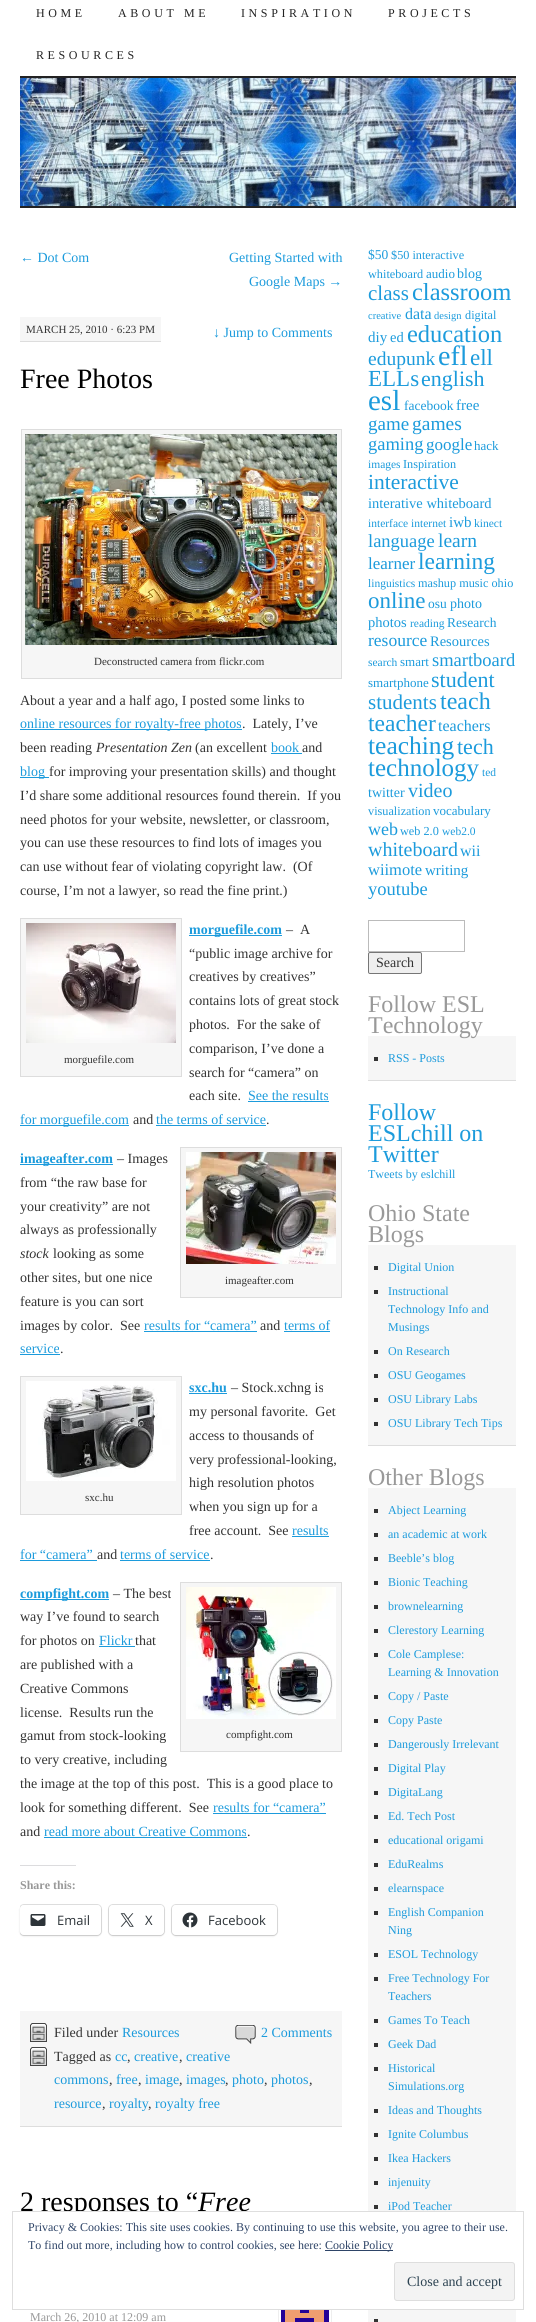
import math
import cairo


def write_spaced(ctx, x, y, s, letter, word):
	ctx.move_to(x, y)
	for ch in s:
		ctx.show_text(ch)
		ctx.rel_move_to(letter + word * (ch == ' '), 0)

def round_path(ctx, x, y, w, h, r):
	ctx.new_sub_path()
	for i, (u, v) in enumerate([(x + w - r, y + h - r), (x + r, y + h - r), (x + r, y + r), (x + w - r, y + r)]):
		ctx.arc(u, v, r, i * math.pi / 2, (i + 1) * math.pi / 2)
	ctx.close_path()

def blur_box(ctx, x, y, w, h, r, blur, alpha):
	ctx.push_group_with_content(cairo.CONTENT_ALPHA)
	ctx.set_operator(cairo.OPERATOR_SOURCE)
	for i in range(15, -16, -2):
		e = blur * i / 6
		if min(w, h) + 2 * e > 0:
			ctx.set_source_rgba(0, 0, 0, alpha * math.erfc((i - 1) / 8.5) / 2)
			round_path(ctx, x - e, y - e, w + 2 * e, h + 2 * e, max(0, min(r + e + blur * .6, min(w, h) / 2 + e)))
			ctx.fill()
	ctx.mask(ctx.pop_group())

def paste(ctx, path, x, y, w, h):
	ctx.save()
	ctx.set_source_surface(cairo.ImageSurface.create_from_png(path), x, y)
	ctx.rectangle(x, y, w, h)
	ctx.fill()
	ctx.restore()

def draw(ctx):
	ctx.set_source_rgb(1, 1, 1)
	ctx.paint()
	ctx.set_source_rgb(0.133, 0.133, 0.133)
	ctx.rectangle(20, 76, 496, 2)
	ctx.fill()
	ctx.select_font_face('Liberation Serif')
	ctx.set_font_size(12)
	for x, y, s in [
		(36, 17, 'HOME'),
		(118, 17, 'ABOUT ME'),
		(241, 17, 'INSPIRATION'),
		(388, 17, 'PROJECTS'),
		(36, 59, 'RESOURCES'),
	]:
		write_spaced(ctx, x, y, s, 3.6, 0)
	paste(ctx, 'media/1.png', 20, 78, 496, 128)
	ctx.rectangle(20, 206, 496, 2)
	ctx.fill()
	ctx.set_font_size(14)
	ctx.set_source_rgb(0.11, 0.608, 0.863)
	for x, y, s in [
		(20, 262, '← Dot Com'),
		(229, 262, 'Getting Started with'),
		(249, 286, 'Google Maps →'),
	]:
		ctx.move_to(x, y)
		ctx.show_text(s)
	ctx.set_source_rgb(0.961, 0.961, 0.961)
	ctx.rectangle(20, 317, 141, 24)
	ctx.fill()
	ctx.set_source_rgb(0.867, 0.867, 0.867)
	ctx.rectangle(20, 341, 141, 1)
	ctx.fill()
	ctx.set_font_size(11)
	ctx.set_source_rgb(0.2, 0.2, 0.2)
	ctx.move_to(26, 333)
	ctx.show_text('MARCH 25, 2010 · 6:23 PM')
	ctx.set_font_size(14)
	ctx.set_source_rgb(0.11, 0.608, 0.863)
	ctx.move_to(213, 337)
	ctx.show_text('↓ Jump to Comments')
	ctx.set_font_size(28)
	ctx.set_source_rgb(0, 0, 0)
	ctx.move_to(20, 388)
	ctx.show_text('Free Photos')
	ctx.set_source_rgb(0.961, 0.961, 0.961)
	ctx.rectangle(21.5, 429.5, 320, 249)
	ctx.fill_preserve()
	ctx.set_source_rgb(0.867, 0.867, 0.867)
	ctx.set_line_width(1)
	ctx.stroke()
	paste(ctx, 'media/2.png', 25, 434, 312, 211)
	ctx.set_font_size(11)
	ctx.set_source_rgb(0.2, 0.2, 0.2)
	ctx.move_to(94, 665)
	ctx.show_text('Deconstructed camera from flickr.com')
	ctx.set_font_size(14)
	ctx.move_to(20, 705)
	ctx.show_text('About a year and a half ago, I posted some links to')
	ctx.set_source_rgb(0.11, 0.608, 0.863)
	ctx.rectangle(20, 729, 222, 1)
	ctx.fill()
	ctx.move_to(20, 728)
	ctx.show_text('online resources for royalty-free photos')
	ctx.set_source_rgb(0.2, 0.2, 0.2)
	ctx.move_to(242, 728)
	ctx.show_text('.  Lately, I’ve')
	ctx.move_to(20, 752)
	ctx.show_text('been reading')
	ctx.select_font_face('Liberation Serif', cairo.FONT_SLANT_ITALIC)
	ctx.move_to(96, 752)
	ctx.show_text('Presentation Zen')
	ctx.select_font_face('Liberation Serif')
	ctx.move_to(195, 752)
	ctx.show_text('(an excellent')
	ctx.set_source_rgb(0.11, 0.608, 0.863)
	ctx.move_to(271, 752)
	ctx.show_text('book')
	ctx.rectangle(271, 753, 31, 1)
	ctx.fill()
	ctx.set_source_rgb(0.2, 0.2, 0.2)
	ctx.move_to(302, 752)
	ctx.show_text('and')
	ctx.set_source_rgb(0.11, 0.608, 0.863)
	ctx.rectangle(20, 777, 29, 1)
	ctx.fill()
	ctx.move_to(20, 776)
	ctx.show_text('blog')
	ctx.set_source_rgb(0.2, 0.2, 0.2)
	for x, y, s in [
		(49, 776, 'for improving your presentation skills) and thought'),
		(20, 800, 'I’d share some additional resources found therein.  If you'),
		(20, 824, 'need photos for your website, newsletter, or classroom,'),
		(20, 847, 'you can use these resources to find lots of images you'),
		(20, 871, 'can use without fear of violating copyright law.  (Of'),
		(20, 895, 'course, I’m not a lawyer, so read the fine print.)'),
	]:
		ctx.move_to(x, y)
		ctx.show_text(s)
	ctx.set_source_rgb(0.11, 0.608, 0.863)
	ctx.rectangle(189, 935, 93, 1)
	ctx.fill()
	ctx.select_font_face('Liberation Serif', cairo.FONT_SLANT_NORMAL, cairo.FONT_WEIGHT_BOLD)
	ctx.move_to(189, 934)
	ctx.show_text('morguefile.com')
	ctx.select_font_face('Liberation Serif')
	ctx.set_source_rgb(0.2, 0.2, 0.2)
	for x, y, s in [
		(286, 934, '–  A'),
		(189, 958, '“public image archive for'),
		(189, 981, 'creatives by creatives”'),
		(189, 1005, 'contains lots of great stock'),
		(189, 1029, 'photos.  For the sake of'),
		(189, 1053, 'comparison, I’ve done a'),
		(189, 1077, 'search for “camera” on'),
		(189, 1100, 'each site.'),
	]:
		ctx.move_to(x, y)
		ctx.show_text(s)
	ctx.set_source_rgb(0.11, 0.608, 0.863)
	ctx.move_to(248, 1100)
	ctx.show_text('See the results')
	ctx.rectangle(248, 1101, 81, 1)
	ctx.fill()
	ctx.rectangle(20, 1125, 109, 1)
	ctx.fill()
	ctx.move_to(20, 1124)
	ctx.show_text('for morguefile.com')
	ctx.set_source_rgb(0.2, 0.2, 0.2)
	ctx.move_to(133, 1124)
	ctx.show_text('and')
	ctx.set_source_rgb(0.11, 0.608, 0.863)
	ctx.move_to(156, 1124)
	ctx.show_text('the terms of service')
	ctx.rectangle(156, 1125, 110, 1)
	ctx.fill()
	ctx.set_source_rgb(0.2, 0.2, 0.2)
	ctx.move_to(266, 1124)
	ctx.show_text('.')
	ctx.set_source_rgb(0.961, 0.961, 0.961)
	ctx.rectangle(20.5, 918.5, 161, 158)
	ctx.fill_preserve()
	ctx.set_source_rgb(0.867, 0.867, 0.867)
	ctx.stroke()
	paste(ctx, 'media/3.png', 26, 923, 150, 120)
	ctx.set_font_size(11)
	ctx.set_source_rgb(0.2, 0.2, 0.2)
	ctx.move_to(64, 1063)
	ctx.show_text('morguefile.com')
	ctx.set_source_rgb(0.11, 0.608, 0.863)
	ctx.rectangle(20, 1164, 93, 1)
	ctx.fill()
	ctx.select_font_face('Liberation Serif', cairo.FONT_SLANT_NORMAL, cairo.FONT_WEIGHT_BOLD)
	ctx.set_font_size(14)
	ctx.move_to(20, 1163)
	ctx.show_text('imageafter.com')
	ctx.select_font_face('Liberation Serif')
	ctx.set_source_rgb(0.2, 0.2, 0.2)
	for x, y, s in [
		(117, 1163, '– Images'),
		(20, 1187, 'from “the raw base for'),
		(20, 1211, 'your creativity” are not'),
		(20, 1234, 'always as professionally'),
	]:
		ctx.move_to(x, y)
		ctx.show_text(s)
	ctx.select_font_face('Liberation Serif', cairo.FONT_SLANT_ITALIC)
	ctx.move_to(20, 1258)
	ctx.show_text('stock')
	ctx.select_font_face('Liberation Serif')
	for x, y, s in [
		(53, 1258, 'looking as some'),
		(20, 1282, 'other sites, but one nice'),
		(20, 1306, 'feature is you can sort'),
		(20, 1330, 'images by color.  See'),
	]:
		ctx.move_to(x, y)
		ctx.show_text(s)
	ctx.set_source_rgb(0.11, 0.608, 0.863)
	ctx.move_to(144, 1330)
	ctx.show_text('results for “camera”')
	ctx.rectangle(144, 1331, 113, 1)
	ctx.fill()
	ctx.set_source_rgb(0.2, 0.2, 0.2)
	ctx.move_to(260, 1330)
	ctx.show_text('and')
	ctx.set_source_rgb(0.11, 0.608, 0.863)
	ctx.move_to(284, 1330)
	ctx.show_text('terms of')
	ctx.rectangle(284, 1331, 46, 1)
	ctx.fill()
	ctx.move_to(20, 1353)
	ctx.show_text('service')
	ctx.rectangle(20, 1354, 40, 1)
	ctx.fill()
	ctx.set_source_rgb(0.2, 0.2, 0.2)
	ctx.move_to(60, 1353)
	ctx.show_text('.')
	ctx.set_source_rgb(0.961, 0.961, 0.961)
	ctx.rectangle(180.5, 1147.5, 161, 150)
	ctx.fill_preserve()
	ctx.set_source_rgb(0.867, 0.867, 0.867)
	ctx.stroke()
	paste(ctx, 'media/4.png', 186, 1152, 150, 112)
	ctx.set_font_size(11)
	ctx.set_source_rgb(0.2, 0.2, 0.2)
	ctx.move_to(225, 1284)
	ctx.show_text('imageafter.com')
	ctx.select_font_face('Liberation Serif', cairo.FONT_SLANT_NORMAL, cairo.FONT_WEIGHT_BOLD)
	ctx.set_font_size(14)
	ctx.set_source_rgb(0.11, 0.608, 0.863)
	ctx.move_to(189, 1392)
	ctx.show_text('sxc.hu')
	ctx.rectangle(189, 1393, 38, 1)
	ctx.fill()
	ctx.select_font_face('Liberation Serif')
	ctx.set_source_rgb(0.2, 0.2, 0.2)
	for x, y, s in [
		(231, 1392, '– Stock.xchng is'),
		(189, 1416, 'my personal favorite.  Get'),
		(189, 1440, 'access to thousands of'),
		(189, 1464, 'very professional-looking,'),
		(189, 1487, 'high resolution photos'),
		(189, 1511, 'when you sign up for a'),
		(189, 1535, 'free account.  See'),
	]:
		ctx.move_to(x, y)
		ctx.show_text(s)
	ctx.set_source_rgb(0.11, 0.608, 0.863)
	ctx.move_to(292, 1535)
	ctx.show_text('results')
	ctx.rectangle(292, 1536, 37, 1)
	ctx.fill()
	ctx.move_to(20, 1559)
	ctx.show_text('for “camera”')
	ctx.rectangle(20, 1560, 77, 1)
	ctx.fill()
	ctx.set_source_rgb(0.2, 0.2, 0.2)
	ctx.move_to(97, 1559)
	ctx.show_text('and')
	ctx.set_source_rgb(0.11, 0.608, 0.863)
	ctx.move_to(120, 1559)
	ctx.show_text('terms of service')
	ctx.rectangle(120, 1560, 90, 1)
	ctx.fill()
	ctx.set_source_rgb(0.2, 0.2, 0.2)
	ctx.move_to(210, 1559)
	ctx.show_text('.')
	ctx.set_source_rgb(0.961, 0.961, 0.961)
	ctx.rectangle(20.5, 1376.5, 161, 138)
	ctx.fill_preserve()
	ctx.set_source_rgb(0.867, 0.867, 0.867)
	ctx.stroke()
	paste(ctx, 'media/5.png', 26, 1381, 150, 100)
	ctx.set_font_size(11)
	ctx.set_source_rgb(0.2, 0.2, 0.2)
	ctx.move_to(85, 1501)
	ctx.show_text('sxc.hu')
	ctx.set_source_rgb(0.11, 0.608, 0.863)
	ctx.rectangle(20, 1599, 89, 1)
	ctx.fill()
	ctx.select_font_face('Liberation Serif', cairo.FONT_SLANT_NORMAL, cairo.FONT_WEIGHT_BOLD)
	ctx.set_font_size(14)
	ctx.move_to(20, 1598)
	ctx.show_text('compfight.com')
	ctx.select_font_face('Liberation Serif')
	ctx.set_source_rgb(0.2, 0.2, 0.2)
	for x, y, s in [
		(113, 1598, '– The best'),
		(20, 1621, 'way I’ve found to search'),
		(20, 1645, 'for photos on'),
	]:
		ctx.move_to(x, y)
		ctx.show_text(s)
	ctx.set_source_rgb(0.11, 0.608, 0.863)
	ctx.move_to(99, 1645)
	ctx.show_text('Flickr')
	ctx.rectangle(99, 1646, 36, 1)
	ctx.fill()
	ctx.set_source_rgb(0.2, 0.2, 0.2)
	for x, y, s in [
		(135, 1645, 'that'),
		(20, 1669, 'are published with a'),
		(20, 1693, 'Creative Commons'),
		(20, 1717, 'license.  Results run the'),
		(20, 1740, 'gamut from stock-looking'),
		(20, 1764, 'to very creative, including'),
		(20, 1788, 'the image at the top of this post.  This is a good place to'),
		(20, 1812, 'look for something different.  See'),
	]:
		ctx.move_to(x, y)
		ctx.show_text(s)
	ctx.set_source_rgb(0.11, 0.608, 0.863)
	ctx.move_to(213, 1812)
	ctx.show_text('results for “camera”')
	ctx.rectangle(213, 1813, 113, 1)
	ctx.fill()
	ctx.set_source_rgb(0.2, 0.2, 0.2)
	ctx.move_to(20, 1836)
	ctx.show_text('and')
	ctx.set_source_rgb(0.11, 0.608, 0.863)
	ctx.move_to(44, 1836)
	ctx.show_text('read more about Creative Commons')
	ctx.rectangle(44, 1837, 203, 1)
	ctx.fill()
	ctx.set_source_rgb(0.2, 0.2, 0.2)
	ctx.move_to(247, 1836)
	ctx.show_text('.')
	ctx.set_source_rgb(0.961, 0.961, 0.961)
	ctx.rectangle(180.5, 1582.5, 161, 169)
	ctx.fill_preserve()
	ctx.set_source_rgb(0.867, 0.867, 0.867)
	ctx.stroke()
	paste(ctx, 'media/6.png', 186, 1587, 150, 132)
	ctx.set_font_size(11)
	ctx.set_source_rgb(0.2, 0.2, 0.2)
	ctx.move_to(226, 1738)
	ctx.show_text('compfight.com')
	ctx.set_source_rgb(0.863, 0.863, 0.871)
	ctx.rectangle(20, 1865, 56, 1)
	ctx.fill()
	ctx.select_font_face('Liberation Serif', cairo.FONT_SLANT_NORMAL, cairo.FONT_WEIGHT_BOLD)
	ctx.set_font_size(12)
	ctx.set_source_rgb(0.6, 0.6, 0.6)
	ctx.move_to(20, 1889)
	ctx.show_text('Share this:')
	ctx.save()
	ctx.rectangle(20, 246, 322, 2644)
	ctx.clip()
	round_path(ctx, 19.5, 1904.5, 82, 31, 4.5)
	ctx.set_source_rgb(0.878, 0.878, 0.878)
	ctx.stroke()
	ctx.restore()
	ctx.set_source_rgb(0, 0, 0)
	blur_box(ctx, 20, 1906, 81, 30, 4, 1, 0.12)
	ctx.set_source_rgb(1, 1, 1)
	round_path(ctx, 20, 1905, 81, 30, 4)
	ctx.fill()
	paste(ctx, 'media/7.png', 30, 1914, 16, 12)
	ctx.select_font_face('Open Sans')
	ctx.set_font_size(13)
	ctx.set_source_rgb(0.173, 0.2, 0.22)
	ctx.move_to(57, 1925)
	ctx.show_text('Email')
	round_path(ctx, 108.5, 1904.5, 56, 31, 4.5)
	ctx.set_source_rgb(0.878, 0.878, 0.878)
	ctx.stroke()
	ctx.set_source_rgb(0, 0, 0)
	blur_box(ctx, 109, 1906, 55, 30, 4, 1, 0.12)
	ctx.set_source_rgb(1, 1, 1)
	round_path(ctx, 109, 1905, 55, 30, 4)
	ctx.fill()
	paste(ctx, 'media/8.png', 120, 1913, 14, 14)
	ctx.set_source_rgb(0.173, 0.2, 0.22)
	ctx.move_to(145, 1925)
	ctx.show_text('X')
	round_path(ctx, 171.5, 1904.5, 106, 31, 4.5)
	ctx.set_source_rgb(0.878, 0.878, 0.878)
	ctx.stroke()
	ctx.set_source_rgb(0, 0, 0)
	blur_box(ctx, 172, 1906, 105, 30, 4, 1, 0.12)
	ctx.set_source_rgb(1, 1, 1)
	round_path(ctx, 172, 1905, 105, 30, 4)
	ctx.fill()
	paste(ctx, 'media/9.png', 182, 1912, 16, 16)
	ctx.set_source_rgb(0.173, 0.2, 0.22)
	ctx.move_to(208, 1925)
	ctx.show_text('Facebook')
	ctx.set_source_rgb(0.961, 0.961, 0.961)
	ctx.rectangle(20, 2011, 322, 115)
	ctx.fill()
	ctx.set_source_rgb(0.867, 0.867, 0.867)
	ctx.rectangle(20, 2126, 322, 1)
	ctx.fill()
	paste(ctx, 'media/10.png', 30, 2023, 17, 19)
	ctx.select_font_face('Liberation Serif')
	ctx.set_font_size(14)
	ctx.set_source_rgb(0.2, 0.2, 0.2)
	ctx.move_to(54, 2037)
	ctx.show_text('Filed under')
	ctx.set_source_rgb(0.11, 0.608, 0.863)
	ctx.move_to(122, 2037)
	ctx.show_text('Resources')
	paste(ctx, 'media/11.png', 235, 2025, 21, 19)
	ctx.move_to(261, 2037)
	ctx.show_text('2 Comments')
	paste(ctx, 'media/10.png', 30, 2047, 17, 19)
	ctx.set_source_rgb(0.2, 0.2, 0.2)
	ctx.move_to(54, 2061)
	ctx.show_text('Tagged as')
	ctx.set_source_rgb(0.11, 0.608, 0.863)
	ctx.move_to(115, 2061)
	ctx.show_text('cc')
	ctx.set_source_rgb(0.2, 0.2, 0.2)
	ctx.move_to(127, 2061)
	ctx.show_text(',')
	ctx.set_source_rgb(0.11, 0.608, 0.863)
	ctx.move_to(134, 2061)
	ctx.show_text('creative')
	ctx.set_source_rgb(0.2, 0.2, 0.2)
	ctx.move_to(179, 2061)
	ctx.show_text(',')
	ctx.set_source_rgb(0.11, 0.608, 0.863)
	ctx.move_to(186, 2061)
	ctx.show_text('creative')
	ctx.move_to(54, 2084)
	ctx.show_text('commons')
	ctx.set_source_rgb(0.2, 0.2, 0.2)
	ctx.move_to(109, 2084)
	ctx.show_text(',')
	ctx.set_source_rgb(0.11, 0.608, 0.863)
	ctx.move_to(116, 2084)
	ctx.show_text('free')
	ctx.set_source_rgb(0.2, 0.2, 0.2)
	ctx.move_to(138, 2084)
	ctx.show_text(',')
	ctx.set_source_rgb(0.11, 0.608, 0.863)
	ctx.move_to(145, 2084)
	ctx.show_text('image')
	ctx.set_source_rgb(0.2, 0.2, 0.2)
	ctx.move_to(179, 2084)
	ctx.show_text(',')
	ctx.set_source_rgb(0.11, 0.608, 0.863)
	ctx.move_to(186, 2084)
	ctx.show_text('images')
	ctx.set_source_rgb(0.2, 0.2, 0.2)
	ctx.move_to(225, 2084)
	ctx.show_text(',')
	ctx.set_source_rgb(0.11, 0.608, 0.863)
	ctx.move_to(232, 2084)
	ctx.show_text('photo')
	ctx.set_source_rgb(0.2, 0.2, 0.2)
	ctx.move_to(264, 2084)
	ctx.show_text(',')
	ctx.set_source_rgb(0.11, 0.608, 0.863)
	ctx.move_to(271, 2084)
	ctx.show_text('photos')
	ctx.set_source_rgb(0.2, 0.2, 0.2)
	ctx.move_to(309, 2084)
	ctx.show_text(',')
	ctx.set_source_rgb(0.11, 0.608, 0.863)
	ctx.move_to(54, 2108)
	ctx.show_text('resource')
	ctx.set_source_rgb(0.2, 0.2, 0.2)
	ctx.move_to(102, 2108)
	ctx.show_text(',')
	ctx.set_source_rgb(0.11, 0.608, 0.863)
	ctx.move_to(109, 2108)
	ctx.show_text('royalty')
	ctx.set_source_rgb(0.2, 0.2, 0.2)
	ctx.move_to(148, 2108)
	ctx.show_text(',')
	ctx.set_source_rgb(0.11, 0.608, 0.863)
	ctx.move_to(155, 2108)
	ctx.show_text('royalty free')
	ctx.set_font_size(28)
	ctx.set_source_rgb(0, 0, 0)
	ctx.move_to(20, 2211)
	ctx.show_text('2 responses to “')
	ctx.select_font_face('Liberation Serif', cairo.FONT_SLANT_ITALIC)
	ctx.move_to(198, 2211)
	ctx.show_text('Free')
	ctx.select_font_face('Liberation Serif')
	ctx.set_font_size(12)
	ctx.set_source_rgb(0.6, 0.6, 0.6)
	ctx.move_to(30, 2321)
	ctx.show_text('March 26, 2010 at 12:09 am')
	ctx.rectangle(278.5, 2282.5, 53, 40)
	ctx.set_source_rgb(0.933, 0.933, 0.933)
	ctx.stroke()
	paste(ctx, 'media/12.png', 281, 2310, 48, 12)
	ctx.set_font_size(13.5)
	ctx.set_source_rgb(0.11, 0.608, 0.863)
	ctx.move_to(368, 259)
	ctx.show_text('$50')
	ctx.set_font_size(12.25)
	ctx.move_to(391, 259)
	ctx.show_text('$50 interactive')
	ctx.move_to(368, 278)
	ctx.show_text('whiteboard')
	ctx.set_font_size(13)
	ctx.move_to(426, 278)
	ctx.show_text('audio')
	ctx.set_font_size(14)
	ctx.move_to(457, 278)
	ctx.show_text('blog')
	ctx.set_font_size(21)
	ctx.move_to(368, 300)
	ctx.show_text('class')
	ctx.set_font_size(24.5)
	ctx.move_to(412, 300)
	ctx.show_text('classroom')
	ctx.set_font_size(10.5)
	ctx.move_to(368, 319)
	ctx.show_text('creative')
	ctx.set_font_size(16)
	ctx.move_to(405, 319)
	ctx.show_text('data')
	ctx.set_font_size(10.5)
	ctx.move_to(434, 319)
	ctx.show_text('design')
	ctx.set_font_size(12.25)
	ctx.move_to(465, 319)
	ctx.show_text('digital')
	ctx.set_font_size(15)
	ctx.move_to(368, 342)
	ctx.show_text('diy')
	ctx.set_font_size(14.5)
	ctx.move_to(390, 342)
	ctx.show_text('ed')
	ctx.set_font_size(24.5)
	ctx.move_to(407, 342)
	ctx.show_text('education')
	ctx.set_font_size(19.5)
	ctx.move_to(368, 365)
	ctx.show_text('edupunk')
	ctx.set_font_size(28)
	ctx.move_to(438, 365)
	ctx.show_text('efl')
	ctx.set_font_size(23)
	ctx.move_to(470, 365)
	ctx.show_text('ell')
	ctx.move_to(368, 386)
	ctx.show_text('ELLs')
	ctx.set_font_size(22)
	ctx.move_to(421, 386)
	ctx.show_text('english')
	ctx.set_font_size(29)
	ctx.move_to(368, 410)
	ctx.show_text('esl')
	ctx.set_font_size(13.5)
	ctx.move_to(404, 410)
	ctx.show_text('facebook')
	ctx.set_font_size(15)
	ctx.move_to(456, 410)
	ctx.show_text('free')
	ctx.set_font_size(19)
	ctx.move_to(368, 430)
	ctx.show_text('game')
	ctx.set_font_size(19.5)
	ctx.move_to(412, 430)
	ctx.show_text('games')
	ctx.set_font_size(18.5)
	ctx.move_to(368, 450)
	ctx.show_text('gaming')
	ctx.set_font_size(17)
	ctx.move_to(426, 450)
	ctx.show_text('google')
	ctx.set_font_size(13)
	ctx.move_to(474, 450)
	ctx.show_text('hack')
	ctx.set_font_size(11.5)
	ctx.move_to(368, 468)
	ctx.show_text('images')
	ctx.set_font_size(12.25)
	ctx.move_to(403, 468)
	ctx.show_text('Inspiration')
	ctx.set_font_size(21.5)
	ctx.move_to(368, 489)
	ctx.show_text('interactive')
	ctx.set_font_size(14.5)
	ctx.move_to(368, 508)
	ctx.show_text('interative whiteboard')
	ctx.set_font_size(11.5)
	ctx.move_to(368, 527)
	ctx.show_text('interface internet')
	ctx.set_font_size(15)
	ctx.move_to(449, 527)
	ctx.show_text('iwb')
	ctx.set_font_size(11.5)
	ctx.move_to(474, 527)
	ctx.show_text('kinect')
	ctx.set_font_size(18.5)
	ctx.move_to(368, 547)
	ctx.show_text('language')
	ctx.set_font_size(19.5)
	ctx.move_to(438, 547)
	ctx.show_text('learn')
	ctx.set_font_size(17)
	ctx.move_to(368, 569)
	ctx.show_text('learner')
	ctx.set_font_size(23.5)
	ctx.move_to(418, 569)
	ctx.show_text('learning')
	ctx.set_font_size(11.5)
	ctx.move_to(368, 587)
	ctx.show_text('linguistics')
	ctx.set_font_size(12.25)
	ctx.move_to(418, 587)
	ctx.show_text('mashup music ohio')
	ctx.set_font_size(23)
	ctx.move_to(368, 608)
	ctx.show_text('online')
	ctx.set_font_size(13.5)
	ctx.move_to(428, 608)
	ctx.show_text('osu')
	ctx.set_font_size(14)
	ctx.move_to(450, 608)
	ctx.show_text('photo')
	ctx.set_font_size(14.5)
	ctx.move_to(368, 627)
	ctx.show_text('photos')
	ctx.set_font_size(11.5)
	ctx.move_to(410, 627)
	ctx.show_text('reading')
	ctx.set_font_size(13.5)
	ctx.move_to(447, 627)
	ctx.show_text('Research')
	ctx.set_font_size(17.5)
	ctx.move_to(368, 646)
	ctx.show_text('resource')
	ctx.set_font_size(14.5)
	ctx.move_to(430, 646)
	ctx.show_text('Resources')
	ctx.set_font_size(11.5)
	ctx.move_to(368, 666)
	ctx.show_text('search')
	ctx.set_font_size(13)
	ctx.move_to(400, 666)
	ctx.show_text('smart')
	ctx.set_font_size(18.5)
	ctx.move_to(432, 666)
	ctx.show_text('smartboard')
	ctx.set_font_size(13)
	ctx.move_to(368, 687)
	ctx.show_text('smartphone')
	ctx.set_font_size(22)
	ctx.move_to(431, 687)
	ctx.show_text('student')
	ctx.set_font_size(21)
	ctx.move_to(368, 709)
	ctx.show_text('students')
	ctx.set_font_size(24)
	ctx.move_to(440, 709)
	ctx.show_text('teach')
	ctx.set_font_size(23.5)
	ctx.move_to(368, 731)
	ctx.show_text('teacher')
	ctx.set_font_size(16)
	ctx.move_to(438, 731)
	ctx.show_text('teachers')
	ctx.set_font_size(25.5)
	ctx.move_to(368, 754)
	ctx.show_text('teaching')
	ctx.set_font_size(22)
	ctx.move_to(457, 754)
	ctx.show_text('tech')
	ctx.set_font_size(25)
	ctx.move_to(368, 776)
	ctx.show_text('technology')
	ctx.set_font_size(11.5)
	ctx.move_to(482, 776)
	ctx.show_text('ted')
	ctx.set_font_size(14)
	ctx.move_to(368, 797)
	ctx.show_text('twitter')
	ctx.set_font_size(20)
	ctx.move_to(408, 797)
	ctx.show_text('video')
	ctx.set_font_size(12.25)
	ctx.move_to(368, 815)
	ctx.show_text('visualization')
	ctx.set_font_size(13)
	ctx.move_to(433, 815)
	ctx.show_text('vocabulary')
	ctx.set_font_size(18)
	ctx.move_to(368, 835)
	ctx.show_text('web')
	ctx.set_font_size(12.25)
	ctx.move_to(400, 835)
	ctx.show_text('web 2.0')
	ctx.set_font_size(11.5)
	ctx.move_to(442, 835)
	ctx.show_text('web2.0')
	ctx.set_font_size(20)
	ctx.move_to(368, 856)
	ctx.show_text('whiteboard')
	ctx.set_font_size(16)
	ctx.move_to(460, 856)
	ctx.show_text('wii')
	ctx.set_font_size(16.5)
	ctx.move_to(368, 875)
	ctx.show_text('wiimote')
	ctx.set_font_size(15)
	ctx.move_to(425, 875)
	ctx.show_text('writing')
	ctx.set_font_size(18.5)
	ctx.move_to(368, 895)
	ctx.show_text('youtube')
	ctx.rectangle(368.5, 920.5, 96, 31)
	ctx.set_source_rgb(0.733, 0.733, 0.733)
	ctx.stroke()
	ctx.set_source_rgb(0.937, 0.937, 0.937)
	round_path(ctx, 368.5, 952.5, 53, 21, 1.5)
	ctx.fill_preserve()
	ctx.set_source_rgb(0.463, 0.463, 0.463)
	ctx.stroke()
	ctx.set_font_size(14)
	ctx.set_source_rgb(0.2, 0.2, 0.2)
	ctx.move_to(376, 967)
	ctx.show_text('Search')
	ctx.set_font_size(24)
	ctx.set_source_rgb(0.6, 0.6, 0.6)
	ctx.move_to(368, 1012)
	ctx.show_text('Follow ESL')
	ctx.set_source_rgb(0.961, 0.961, 0.961)
	ctx.rectangle(368, 1036, 148, 44)
	ctx.fill()
	ctx.set_source_rgb(0.6, 0.6, 0.6)
	ctx.move_to(368, 1033)
	ctx.show_text('Technology')
	ctx.set_source_rgb(0.867, 0.867, 0.867)
	ctx.rectangle(368, 1080, 148, 1)
	ctx.fill()
	ctx.set_source_rgb(0.2, 0.2, 0.2)
	ctx.rectangle(374, 1057, 4, 4)
	ctx.fill()
	ctx.set_font_size(12)
	ctx.set_source_rgb(0.11, 0.608, 0.863)
	ctx.move_to(388, 1062)
	ctx.show_text('RSS - Posts')
	ctx.set_font_size(24)
	for x, y, s in [
		(368, 1120, 'Follow'),
		(368, 1141, 'ESLchill on'),
		(368, 1162, 'Twitter'),
	]:
		ctx.move_to(x, y)
		ctx.show_text(s)
	ctx.set_font_size(12)
	ctx.move_to(368, 1178)
	ctx.show_text('Tweets by eslchill')
	ctx.set_font_size(24)
	ctx.set_source_rgb(0.6, 0.6, 0.6)
	ctx.move_to(368, 1221)
	ctx.show_text('Ohio State')
	ctx.set_source_rgb(0.961, 0.961, 0.961)
	ctx.rectangle(368, 1245, 148, 200)
	ctx.fill()
	ctx.set_source_rgb(0.6, 0.6, 0.6)
	ctx.move_to(368, 1242)
	ctx.show_text('Blogs')
	ctx.set_source_rgb(0.867, 0.867, 0.867)
	ctx.rectangle(368, 1445, 148, 1)
	ctx.fill()
	ctx.set_source_rgb(0.2, 0.2, 0.2)
	ctx.rectangle(374, 1266, 4, 4)
	ctx.fill()
	ctx.set_font_size(12)
	ctx.set_source_rgb(0.11, 0.608, 0.863)
	ctx.move_to(388, 1271)
	ctx.show_text('Digital Union')
	ctx.set_source_rgb(0.2, 0.2, 0.2)
	ctx.rectangle(374, 1290, 4, 4)
	ctx.fill()
	ctx.set_source_rgb(0.11, 0.608, 0.863)
	for x, y, s in [
		(388, 1295, 'Instructional'),
		(388, 1313, 'Technology Info and'),
		(388, 1331, 'Musings'),
	]:
		ctx.move_to(x, y)
		ctx.show_text(s)
	ctx.set_source_rgb(0.2, 0.2, 0.2)
	ctx.rectangle(374, 1350, 4, 4)
	ctx.fill()
	ctx.set_source_rgb(0.11, 0.608, 0.863)
	ctx.move_to(388, 1355)
	ctx.show_text('On Research')
	ctx.set_source_rgb(0.2, 0.2, 0.2)
	ctx.rectangle(374, 1374, 4, 4)
	ctx.fill()
	ctx.set_source_rgb(0.11, 0.608, 0.863)
	ctx.move_to(388, 1379)
	ctx.show_text('OSU Geogames')
	ctx.set_source_rgb(0.2, 0.2, 0.2)
	ctx.rectangle(374, 1398, 4, 4)
	ctx.fill()
	ctx.set_source_rgb(0.11, 0.608, 0.863)
	ctx.move_to(388, 1403)
	ctx.show_text('OSU Library Labs')
	ctx.set_source_rgb(0.2, 0.2, 0.2)
	ctx.rectangle(374, 1422, 4, 4)
	ctx.fill()
	ctx.set_source_rgb(0.11, 0.608, 0.863)
	ctx.move_to(388, 1427)
	ctx.show_text('OSU Library Tech Tips')
	ctx.set_source_rgb(0.961, 0.961, 0.961)
	ctx.rectangle(368, 1488, 148, 834)
	ctx.fill()
	ctx.set_font_size(24)
	ctx.set_source_rgb(0.6, 0.6, 0.6)
	ctx.move_to(368, 1485)
	ctx.show_text('Other Blogs')
	ctx.set_source_rgb(0.2, 0.2, 0.2)
	ctx.rectangle(374, 1509, 4, 4)
	ctx.fill()
	ctx.set_font_size(12)
	ctx.set_source_rgb(0.11, 0.608, 0.863)
	ctx.move_to(388, 1514)
	ctx.show_text('Abject Learning')
	ctx.set_source_rgb(0.2, 0.2, 0.2)
	ctx.rectangle(374, 1533, 4, 4)
	ctx.fill()
	ctx.set_source_rgb(0.11, 0.608, 0.863)
	ctx.move_to(388, 1538)
	ctx.show_text('an academic at work')
	ctx.set_source_rgb(0.2, 0.2, 0.2)
	ctx.rectangle(374, 1557, 4, 4)
	ctx.fill()
	ctx.set_source_rgb(0.11, 0.608, 0.863)
	ctx.move_to(388, 1562)
	ctx.show_text('Beeble’s blog')
	ctx.set_source_rgb(0.2, 0.2, 0.2)
	ctx.rectangle(374, 1581, 4, 4)
	ctx.fill()
	ctx.set_source_rgb(0.11, 0.608, 0.863)
	ctx.move_to(388, 1586)
	ctx.show_text('Bionic Teaching')
	ctx.set_source_rgb(0.2, 0.2, 0.2)
	ctx.rectangle(374, 1605, 4, 4)
	ctx.fill()
	ctx.set_source_rgb(0.11, 0.608, 0.863)
	ctx.move_to(388, 1610)
	ctx.show_text('brownelearning')
	ctx.set_source_rgb(0.2, 0.2, 0.2)
	ctx.rectangle(374, 1629, 4, 4)
	ctx.fill()
	ctx.set_source_rgb(0.11, 0.608, 0.863)
	ctx.move_to(388, 1634)
	ctx.show_text('Clerestory Learning')
	ctx.set_source_rgb(0.2, 0.2, 0.2)
	ctx.rectangle(374, 1653, 4, 4)
	ctx.fill()
	ctx.set_source_rgb(0.11, 0.608, 0.863)
	ctx.move_to(388, 1658)
	ctx.show_text('Cole Camplese:')
	ctx.move_to(388, 1676)
	ctx.show_text('Learning & Innovation')
	ctx.set_source_rgb(0.2, 0.2, 0.2)
	ctx.rectangle(374, 1695, 4, 4)
	ctx.fill()
	ctx.set_source_rgb(0.11, 0.608, 0.863)
	ctx.move_to(388, 1700)
	ctx.show_text('Copy / Paste')
	ctx.set_source_rgb(0.2, 0.2, 0.2)
	ctx.rectangle(374, 1719, 4, 4)
	ctx.fill()
	ctx.set_source_rgb(0.11, 0.608, 0.863)
	ctx.move_to(388, 1724)
	ctx.show_text('Copy Paste')
	ctx.set_source_rgb(0.2, 0.2, 0.2)
	ctx.rectangle(374, 1743, 4, 4)
	ctx.fill()
	ctx.set_source_rgb(0.11, 0.608, 0.863)
	ctx.move_to(388, 1748)
	ctx.show_text('Dangerously Irrelevant')
	ctx.set_source_rgb(0.2, 0.2, 0.2)
	ctx.rectangle(374, 1767, 4, 4)
	ctx.fill()
	ctx.set_source_rgb(0.11, 0.608, 0.863)
	ctx.move_to(388, 1772)
	ctx.show_text('Digital Play')
	ctx.set_source_rgb(0.2, 0.2, 0.2)
	ctx.rectangle(374, 1791, 4, 4)
	ctx.fill()
	ctx.set_source_rgb(0.11, 0.608, 0.863)
	ctx.move_to(388, 1796)
	ctx.show_text('DigitaLang')
	ctx.set_source_rgb(0.2, 0.2, 0.2)
	ctx.rectangle(374, 1815, 4, 4)
	ctx.fill()
	ctx.set_source_rgb(0.11, 0.608, 0.863)
	ctx.move_to(388, 1820)
	ctx.show_text('Ed. Tech Post')
	ctx.set_source_rgb(0.2, 0.2, 0.2)
	ctx.rectangle(374, 1839, 4, 4)
	ctx.fill()
	ctx.set_source_rgb(0.11, 0.608, 0.863)
	ctx.move_to(388, 1844)
	ctx.show_text('educational origami')
	ctx.set_source_rgb(0.2, 0.2, 0.2)
	ctx.rectangle(374, 1863, 4, 4)
	ctx.fill()
	ctx.set_source_rgb(0.11, 0.608, 0.863)
	ctx.move_to(388, 1868)
	ctx.show_text('EduRealms')
	ctx.set_source_rgb(0.2, 0.2, 0.2)
	ctx.rectangle(374, 1887, 4, 4)
	ctx.fill()
	ctx.set_source_rgb(0.11, 0.608, 0.863)
	ctx.move_to(388, 1892)
	ctx.show_text('elearnspace')
	ctx.set_source_rgb(0.2, 0.2, 0.2)
	ctx.rectangle(374, 1911, 4, 4)
	ctx.fill()
	ctx.set_source_rgb(0.11, 0.608, 0.863)
	ctx.move_to(388, 1916)
	ctx.show_text('English Companion')
	ctx.move_to(388, 1934)
	ctx.show_text('Ning')
	ctx.set_source_rgb(0.2, 0.2, 0.2)
	ctx.rectangle(374, 1953, 4, 4)
	ctx.fill()
	ctx.set_source_rgb(0.11, 0.608, 0.863)
	ctx.move_to(388, 1958)
	ctx.show_text('ESOL Technology')
	ctx.set_source_rgb(0.2, 0.2, 0.2)
	ctx.rectangle(374, 1977, 4, 4)
	ctx.fill()
	ctx.set_source_rgb(0.11, 0.608, 0.863)
	ctx.move_to(388, 1982)
	ctx.show_text('Free Technology For')
	ctx.move_to(388, 2000)
	ctx.show_text('Teachers')
	ctx.set_source_rgb(0.2, 0.2, 0.2)
	ctx.rectangle(374, 2019, 4, 4)
	ctx.fill()
	ctx.set_source_rgb(0.11, 0.608, 0.863)
	ctx.move_to(388, 2024)
	ctx.show_text('Games To Teach')
	ctx.set_source_rgb(0.2, 0.2, 0.2)
	ctx.rectangle(374, 2043, 4, 4)
	ctx.fill()
	ctx.set_source_rgb(0.11, 0.608, 0.863)
	ctx.move_to(388, 2048)
	ctx.show_text('Geek Dad')
	ctx.set_source_rgb(0.2, 0.2, 0.2)
	ctx.rectangle(374, 2067, 4, 4)
	ctx.fill()
	ctx.set_source_rgb(0.11, 0.608, 0.863)
	ctx.move_to(388, 2072)
	ctx.show_text('Historical')
	ctx.move_to(388, 2090)
	ctx.show_text('Simulations.org')
	ctx.set_source_rgb(0.2, 0.2, 0.2)
	ctx.rectangle(374, 2109, 4, 4)
	ctx.fill()
	ctx.set_source_rgb(0.11, 0.608, 0.863)
	ctx.move_to(388, 2114)
	ctx.show_text('Ideas and Thoughts')
	ctx.set_source_rgb(0.2, 0.2, 0.2)
	ctx.rectangle(374, 2133, 4, 4)
	ctx.fill()
	ctx.set_source_rgb(0.11, 0.608, 0.863)
	ctx.move_to(388, 2138)
	ctx.show_text('Ignite Columbus')
	ctx.set_source_rgb(0.2, 0.2, 0.2)
	ctx.rectangle(374, 2157, 4, 4)
	ctx.fill()
	ctx.set_source_rgb(0.11, 0.608, 0.863)
	ctx.move_to(388, 2162)
	ctx.show_text('Ikea Hackers')
	ctx.set_source_rgb(0.2, 0.2, 0.2)
	ctx.rectangle(374, 2181, 4, 4)
	ctx.fill()
	ctx.set_source_rgb(0.11, 0.608, 0.863)
	ctx.move_to(388, 2186)
	ctx.show_text('injenuity')
	ctx.set_source_rgb(0.2, 0.2, 0.2)
	ctx.rectangle(374, 2205, 4, 4)
	ctx.fill()
	ctx.set_source_rgb(0.11, 0.608, 0.863)
	ctx.move_to(388, 2210)
	ctx.show_text('iPod Teacher')
	ctx.set_source_rgb(0.2, 0.2, 0.2)
	ctx.rectangle(374, 2319, 4, 3)
	ctx.fill()
	ctx.set_source_rgb(1, 1, 1)
	ctx.rectangle(74, 2212, 442, 97)
	ctx.fill()
	ctx.rectangle(12.5, 2211.5, 511, 98)
	ctx.set_source_rgb(0.871, 0.871, 0.871)
	ctx.stroke()
	ctx.set_source_rgb(0.18, 0.267, 0.404)
	ctx.move_to(28, 2231)
	ctx.show_text('Privacy & Cookies: This site uses cookies. By continuing to use this website, you agree to their use.')
	ctx.move_to(28, 2249)
	ctx.show_text('To find out more, including how to control cookies, see here:')
	ctx.rectangle(325, 2250, 68, 1)
	ctx.fill()
	ctx.move_to(325, 2249)
	ctx.show_text('Cookie Policy')
	ctx.set_source_rgb(0.953, 0.953, 0.953)
	round_path(ctx, 394.5, 2262.5, 120, 38, 2.5)
	ctx.fill_preserve()
	ctx.set_source_rgb(0.871, 0.871, 0.871)
	ctx.stroke()
	ctx.set_font_size(14)
	ctx.set_source_rgb(0.18, 0.267, 0.325)
	ctx.move_to(407, 2286)
	ctx.show_text('Close and accept')


surface = cairo.ImageSurface(cairo.FORMAT_RGB24, 536, 2322)
ctx = cairo.Context(surface)
options = cairo.FontOptions()
options.set_hint_metrics(cairo.HINT_METRICS_OFF)
options.set_hint_style(cairo.HINT_STYLE_NONE)
ctx.set_font_options(options)
ctx.set_miter_limit(4)
draw(ctx)
surface.write_to_png('image.png')
